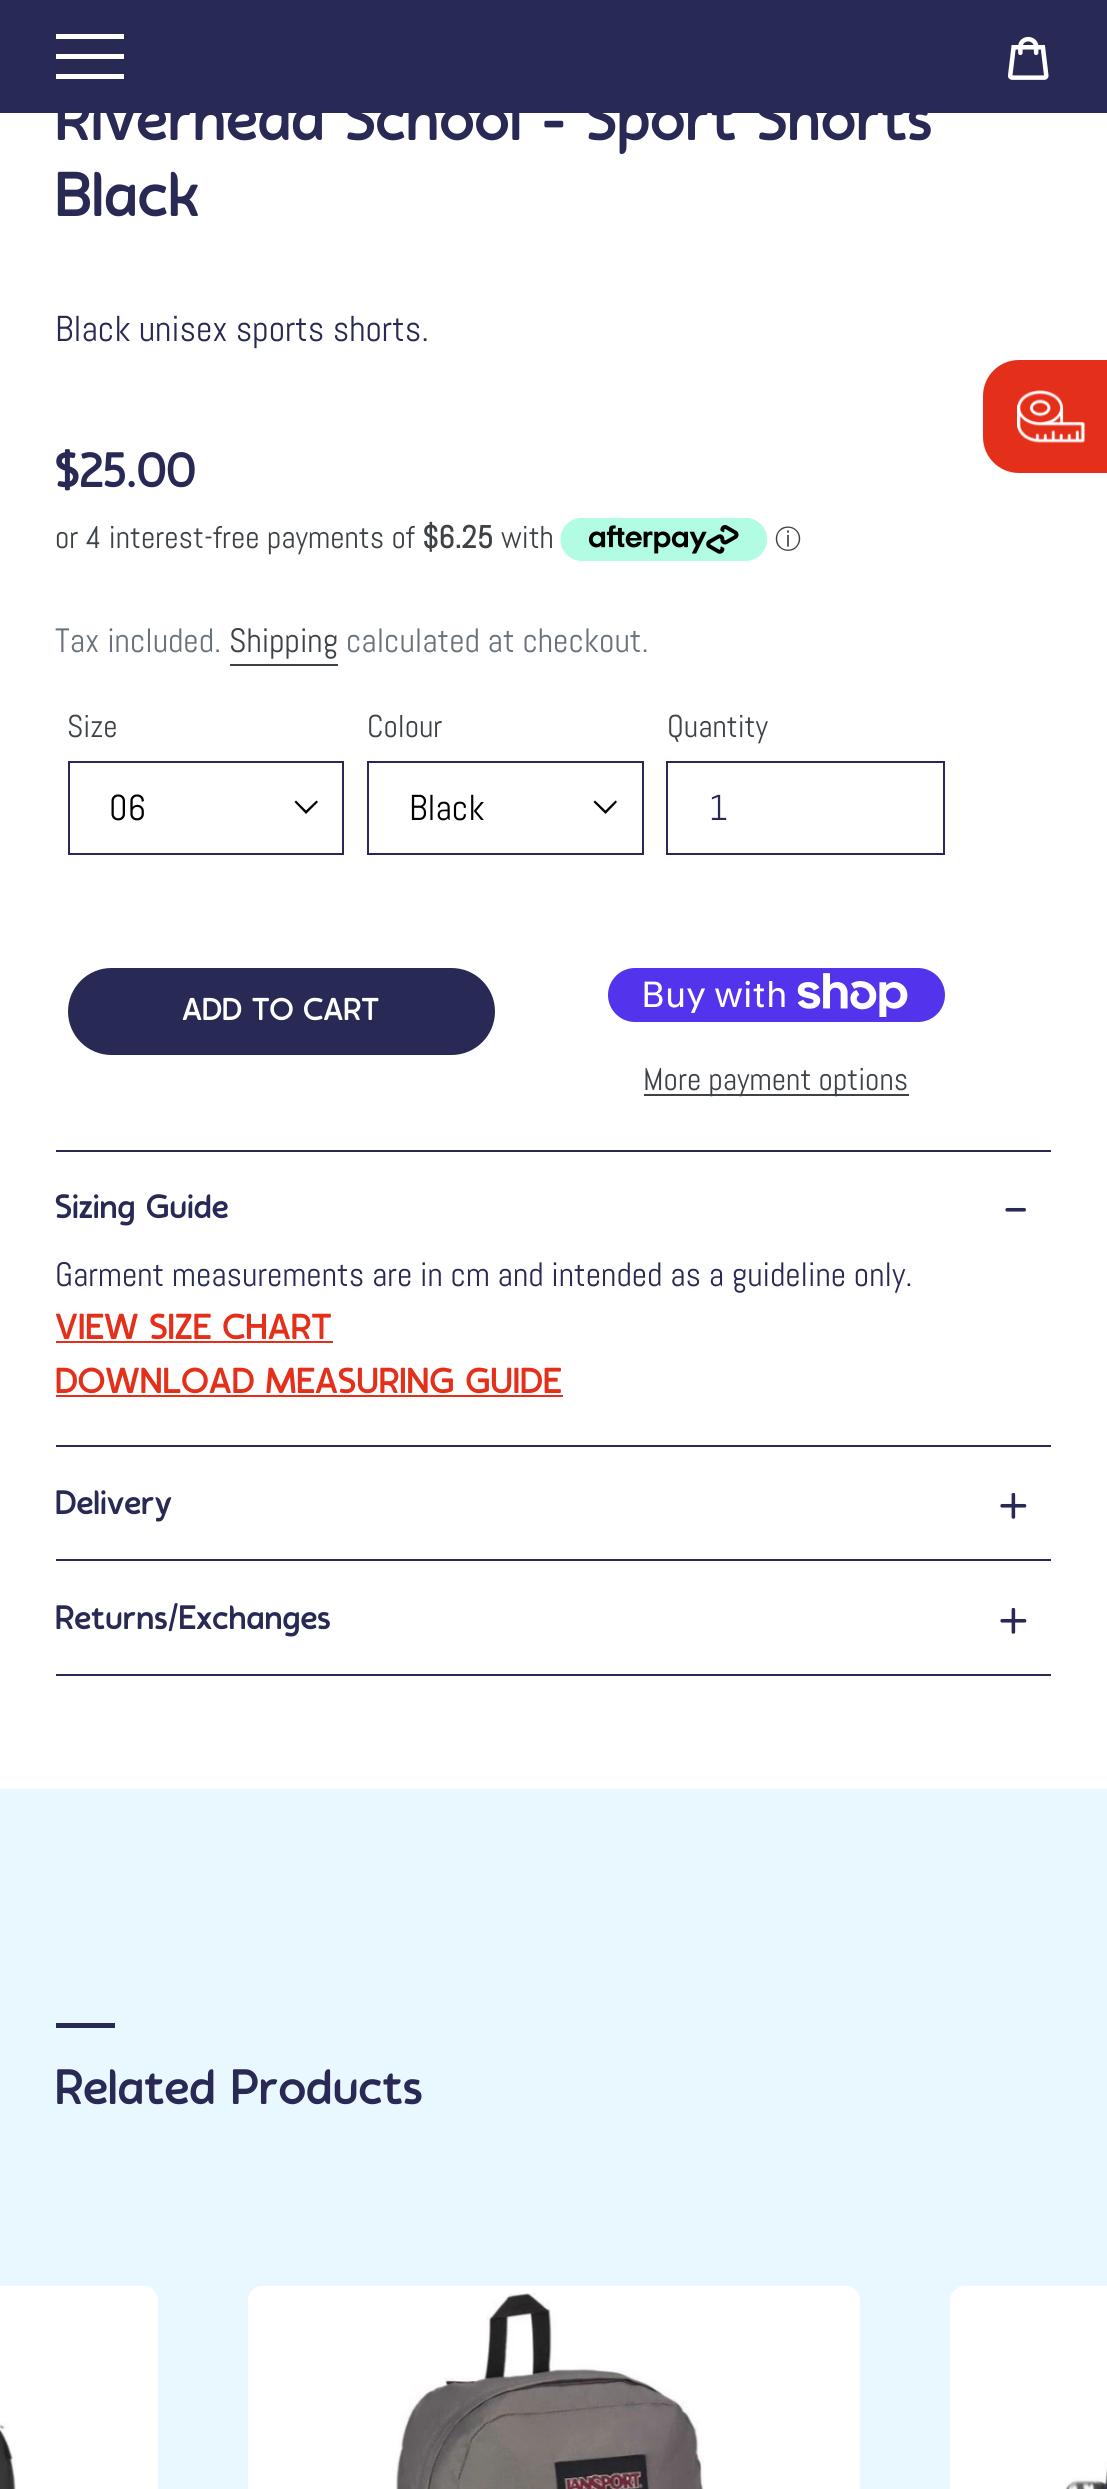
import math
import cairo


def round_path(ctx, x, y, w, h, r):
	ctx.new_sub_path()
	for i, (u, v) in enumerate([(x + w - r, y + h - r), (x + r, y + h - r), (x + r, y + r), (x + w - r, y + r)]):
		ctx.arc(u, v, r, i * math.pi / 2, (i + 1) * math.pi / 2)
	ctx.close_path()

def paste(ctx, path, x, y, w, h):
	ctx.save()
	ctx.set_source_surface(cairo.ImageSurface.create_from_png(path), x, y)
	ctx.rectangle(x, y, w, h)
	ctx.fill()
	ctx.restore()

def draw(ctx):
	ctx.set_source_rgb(1, 1, 1)
	ctx.paint()
	ctx.set_source_rgb(0.157, 0.161, 0.329)
	ctx.rectangle(0, 0, 1107, 113)
	ctx.fill()
	ctx.set_source_rgb(1, 1, 1)
	ctx.rectangle(56, 34, 68, 5)
	ctx.rectangle(56, 54, 68, 5)
	ctx.rectangle(56, 74, 68, 5)
	ctx.fill()
	paste(ctx, 'media/1.png', 1008, 36, 41, 44)
	ctx.select_font_face('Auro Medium')
	ctx.set_font_size(63)
	ctx.set_source_rgb(0.157, 0.161, 0.329)
	ctx.move_to(55, 140)
	ctx.show_text('Riverhead School - Sport Shorts')
	ctx.move_to(55, 216)
	ctx.show_text('Black')
	ctx.select_font_face('Abel')
	ctx.set_font_size(36)
	ctx.move_to(55, 341)
	ctx.show_text('Black unisex sports shorts.')
	ctx.select_font_face('Auro Medium')
	ctx.set_font_size(49.5)
	ctx.move_to(55, 487)
	ctx.show_text('$25.00')
	ctx.select_font_face('Abel')
	ctx.set_font_size(31.5)
	ctx.set_source_rgb(0.239, 0.259, 0.275)
	ctx.move_to(55, 548)
	ctx.show_text('or 4 interest-free payments of')
	ctx.select_font_face('Abel', cairo.FONT_SLANT_NORMAL, cairo.FONT_WEIGHT_BOLD)
	ctx.move_to(422, 548)
	ctx.show_text('$6.25')
	ctx.select_font_face('Abel')
	ctx.move_to(501, 548)
	ctx.show_text('with')
	paste(ctx, 'media/2.png', 560, 517, 207, 44)
	ctx.select_font_face('WenQuanYi Zen Hei Medium')
	ctx.set_font_size(26)
	ctx.move_to(775, 548)
	ctx.show_text('ⓘ')
	ctx.select_font_face('Abel')
	ctx.set_font_size(33.75)
	ctx.set_source_rgb(0.412, 0.447, 0.482)
	ctx.move_to(55, 652)
	ctx.show_text('Tax included.')
	ctx.set_source_rgb(0.239, 0.259, 0.275)
	ctx.move_to(229, 652)
	ctx.show_text('Shipping')
	ctx.rectangle(230, 664, 108, 2)
	ctx.fill()
	ctx.set_source_rgb(0.412, 0.447, 0.482)
	ctx.move_to(346, 652)
	ctx.show_text('calculated at checkout.')
	ctx.set_font_size(31.5)
	ctx.set_source_rgb(0.239, 0.259, 0.275)
	ctx.move_to(67, 737)
	ctx.show_text('Size')
	ctx.set_source_rgb(0, 0, 0)
	ctx.new_path()
	ctx.move_to(306, 814)
	ctx.line_to(294.5, 802)
	ctx.line_to(296, 800.5)
	ctx.line_to(306, 810.5)
	ctx.line_to(316.5, 800.5)
	ctx.line_to(318, 802)
	ctx.close_path()
	ctx.fill()
	ctx.rectangle(69, 762, 274, 92)
	ctx.set_source_rgb(0.157, 0.161, 0.329)
	ctx.stroke()
	ctx.set_font_size(36)
	ctx.set_source_rgb(0, 0, 0)
	ctx.move_to(109, 820)
	ctx.show_text('06')
	ctx.set_font_size(31.5)
	ctx.set_source_rgb(0.239, 0.259, 0.275)
	ctx.move_to(367, 737)
	ctx.show_text('Colour')
	ctx.set_source_rgb(0, 0, 0)
	ctx.new_path()
	ctx.move_to(605.5, 814)
	ctx.line_to(593.5, 802)
	ctx.line_to(595, 800.5)
	ctx.line_to(605.5, 810.5)
	ctx.line_to(615.5, 800.5)
	ctx.line_to(617, 802)
	ctx.close_path()
	ctx.fill()
	ctx.rectangle(368, 762, 275, 92)
	ctx.set_source_rgb(0.157, 0.161, 0.329)
	ctx.stroke()
	ctx.set_font_size(36)
	ctx.set_source_rgb(0, 0, 0)
	ctx.move_to(409, 820)
	ctx.show_text('Black')
	ctx.set_font_size(31.5)
	ctx.set_source_rgb(0.239, 0.259, 0.275)
	ctx.move_to(667, 737)
	ctx.show_text('Quantity')
	ctx.rectangle(667, 762, 277, 92)
	ctx.set_source_rgb(0.157, 0.161, 0.329)
	ctx.stroke()
	ctx.set_font_size(36)
	ctx.move_to(709, 820)
	ctx.show_text('1')
	round_path(ctx, 68, 968, 427, 87, 43.5)
	ctx.fill()
	ctx.select_font_face('Auro Medium')
	ctx.set_font_size(31.5)
	ctx.set_source_rgb(1, 1, 1)
	ctx.move_to(182, 1020)
	ctx.show_text('ADD TO CART')
	ctx.set_source_rgb(0.329, 0.2, 0.922)
	round_path(ctx, 608, 968, 337, 54, 27)
	ctx.fill()
	ctx.select_font_face('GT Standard')
	ctx.set_font_size(36)
	ctx.set_source_rgb(1, 1, 1)
	ctx.move_to(641, 1007)
	ctx.show_text('Buy with')
	paste(ctx, 'media/3.png', 797, 973, 111, 44)
	ctx.set_source_rgb(0.239, 0.259, 0.275)
	ctx.rectangle(644, 1094, 265, 2)
	ctx.fill()
	ctx.select_font_face('Abel')
	ctx.set_font_size(31.5)
	ctx.move_to(643, 1090)
	ctx.show_text('More payment options')
	ctx.set_source_rgb(0.157, 0.161, 0.329)
	ctx.rectangle(56, 1150, 995, 2)
	ctx.fill()
	ctx.rectangle(56, 1445, 995, 2)
	ctx.fill()
	ctx.select_font_face('Auro Medium')
	ctx.set_font_size(33.75)
	ctx.move_to(55, 1218)
	ctx.show_text('Sizing Guide')
	ctx.select_font_face('Auro')
	ctx.set_font_size(68)
	ctx.move_to(1002, 1227)
	ctx.show_text('-')
	ctx.select_font_face('Abel')
	ctx.set_font_size(33.75)
	ctx.move_to(55, 1286)
	ctx.show_text('Garment measurements are in cm and intended as a guideline only.')
	ctx.select_font_face('Auro Medium')
	ctx.set_font_size(36)
	ctx.set_source_rgb(0.894, 0.184, 0.102)
	ctx.move_to(55, 1339)
	ctx.show_text('VIEW SIZE CHART')
	ctx.rectangle(56, 1341, 277, 2)
	ctx.fill()
	ctx.move_to(55, 1393)
	ctx.show_text('DOWNLOAD MEASURING GUIDE')
	ctx.rectangle(56, 1395, 507, 2)
	ctx.fill()
	ctx.set_source_rgb(0.157, 0.161, 0.329)
	ctx.rectangle(56, 1559, 995, 2)
	ctx.fill()
	ctx.set_font_size(33.75)
	ctx.move_to(55, 1514)
	ctx.show_text('Delivery')
	ctx.select_font_face('Auro')
	ctx.set_font_size(68)
	ctx.move_to(997, 1523)
	ctx.show_text('+')
	ctx.rectangle(56, 1674, 995, 2)
	ctx.fill()
	ctx.select_font_face('Auro Medium')
	ctx.set_font_size(33.75)
	ctx.move_to(55, 1629)
	ctx.show_text('Returns/Exchanges')
	ctx.select_font_face('Auro')
	ctx.set_font_size(68)
	ctx.move_to(997, 1638)
	ctx.show_text('+')
	ctx.set_source_rgb(0.894, 0.184, 0.102)
	ctx.new_path()
	ctx.move_to(1019, 360)
	ctx.line_to(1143, 360)
	ctx.line_to(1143, 473)
	ctx.line_to(1019, 473)
	ctx.curve_to(999, 473, 983, 457, 983, 437)
	ctx.line_to(983, 396)
	ctx.curve_to(983, 376, 999, 360, 1019, 360)
	ctx.close_path()
	ctx.fill()
	paste(ctx, 'media/4.png', 1017, 390, 68, 53)
	ctx.set_source_rgb(0.914, 0.965, 0.996)
	ctx.rectangle(0, 1789, 1107, 700)
	ctx.fill()
	ctx.set_source_rgb(0.157, 0.161, 0.329)
	ctx.rectangle(56, 2023, 59, 5)
	ctx.fill()
	ctx.select_font_face('Auro Medium')
	ctx.set_font_size(49.5)
	ctx.move_to(55, 2104)
	ctx.show_text('Related Products')
	ctx.set_source_rgb(1, 1, 1)
	ctx.new_path()
	ctx.move_to(0, 2286)
	ctx.line_to(144, 2286)
	ctx.curve_to(151.5, 2286, 158, 2292.5, 158, 2300)
	ctx.line_to(158, 2489)
	ctx.curve_to(158, 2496.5, 151.5, 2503, 144, 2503)
	ctx.line_to(0, 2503)
	ctx.close_path()
	ctx.fill()
	paste(ctx, 'media/5.png', 0, 2422, 16, 67)
	round_path(ctx, 248, 2286, 612, 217, 14)
	ctx.fill()
	paste(ctx, 'media/6.png', 395, 2293, 309, 196)
	ctx.new_path()
	ctx.move_to(964, 2286)
	ctx.line_to(1107, 2286)
	ctx.line_to(1107, 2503)
	ctx.line_to(964, 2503)
	ctx.curve_to(956.5, 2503, 950, 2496.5, 950, 2489)
	ctx.line_to(950, 2300)
	ctx.curve_to(950, 2292.5, 956.5, 2286, 964, 2286)
	ctx.close_path()
	ctx.fill()
	paste(ctx, 'media/7.png', 1065, 2462, 42, 27)


surface = cairo.ImageSurface(cairo.FORMAT_RGB24, 1107, 2489)
ctx = cairo.Context(surface)
options = cairo.FontOptions()
options.set_hint_metrics(cairo.HINT_METRICS_OFF)
options.set_hint_style(cairo.HINT_STYLE_NONE)
ctx.set_font_options(options)
ctx.set_miter_limit(4)
draw(ctx)
surface.write_to_png('image.png')
